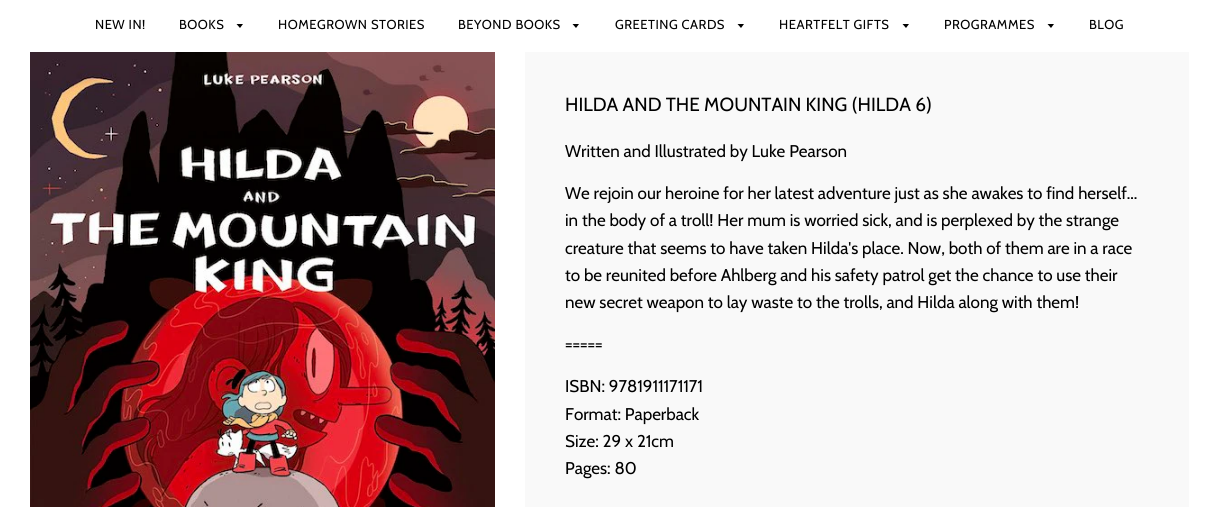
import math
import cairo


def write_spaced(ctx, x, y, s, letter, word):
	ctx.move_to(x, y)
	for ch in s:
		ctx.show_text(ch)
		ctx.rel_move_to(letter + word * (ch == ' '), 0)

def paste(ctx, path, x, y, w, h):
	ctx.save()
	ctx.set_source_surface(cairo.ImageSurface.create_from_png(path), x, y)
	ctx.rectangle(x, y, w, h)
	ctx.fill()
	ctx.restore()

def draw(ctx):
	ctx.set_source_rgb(1, 1, 1)
	ctx.paint()
	ctx.select_font_face('Cabin')
	ctx.set_font_size(13)
	ctx.set_source_rgb(0, 0, 0)
	write_spaced(ctx, 95, 29, 'NEW IN!', 0.5, 0)
	write_spaced(ctx, 179, 29, 'BOOKS', 0.5, 0)
	ctx.new_path()
	ctx.move_to(236.5, 24)
	ctx.line_to(240, 28)
	ctx.line_to(243, 24)
	ctx.close_path()
	ctx.fill()
	write_spaced(ctx, 278, 29, 'HOMEGROWN STORIES', 0.5, 0)
	write_spaced(ctx, 458, 29, 'BEYOND BOOKS', 0.5, 0)
	ctx.new_path()
	ctx.move_to(572.5, 24)
	ctx.line_to(576, 28)
	ctx.line_to(579, 24)
	ctx.close_path()
	ctx.fill()
	write_spaced(ctx, 615, 29, 'GREETING CARDS', 0.5, 0)
	ctx.new_path()
	ctx.move_to(737.5, 24)
	ctx.line_to(741, 28)
	ctx.line_to(744, 24)
	ctx.close_path()
	ctx.fill()
	write_spaced(ctx, 779, 29, 'HEARTFELT GIFTS', 0.5, 0)
	ctx.new_path()
	ctx.move_to(902.5, 24)
	ctx.line_to(906, 28)
	ctx.line_to(909, 24)
	ctx.close_path()
	ctx.fill()
	write_spaced(ctx, 944, 29, 'PROGRAMMES', 0.5, 0)
	ctx.new_path()
	ctx.move_to(1047.5, 24)
	ctx.line_to(1051, 28)
	ctx.line_to(1054, 24)
	ctx.close_path()
	ctx.fill()
	write_spaced(ctx, 1089, 29, 'BLOG', 0.5, 0)
	paste(ctx, 'media/1.png', 30, 52, 465, 455)
	ctx.set_source_rgb(0.973, 0.973, 0.973)
	ctx.rectangle(525, 52, 664, 455)
	ctx.fill()
	ctx.set_font_size(19)
	ctx.set_source_rgb(0, 0, 0)
	ctx.move_to(565, 111)
	ctx.show_text('HILDA AND THE MOUNTAIN KING (HILDA 6)')
	ctx.set_font_size(17)
	for x, y, s in [
		(565, 157, 'Written and Illustrated by Luke Pearson'),
		(565, 199, 'We rejoin our heroine for her latest adventure just as she awakes to find herself...'),
		(565, 226, 'in the body of a troll! Her mum is worried sick, and is perplexed by the strange'),
		(565, 254, 'creature that seems to have taken Hilda\'s place. Now, both of them are in a race'),
		(565, 281, 'to be reunited before Ahlberg and his safety patrol get the chance to use their'),
		(565, 308, 'new secret weapon to lay waste to the trolls, and Hilda along with them!'),
		(565, 350, '====='),
		(565, 392, 'ISBN: 9781911171171'),
		(565, 420, 'Format: Paperback'),
		(565, 447, 'Size: 29 x 21cm'),
		(565, 474, 'Pages: 80'),
	]:
		ctx.move_to(x, y)
		ctx.show_text(s)


surface = cairo.ImageSurface(cairo.FORMAT_RGB24, 1219, 507)
ctx = cairo.Context(surface)
options = cairo.FontOptions()
options.set_hint_metrics(cairo.HINT_METRICS_OFF)
options.set_hint_style(cairo.HINT_STYLE_NONE)
ctx.set_font_options(options)
ctx.set_miter_limit(4)
draw(ctx)
surface.write_to_png('image.png')
